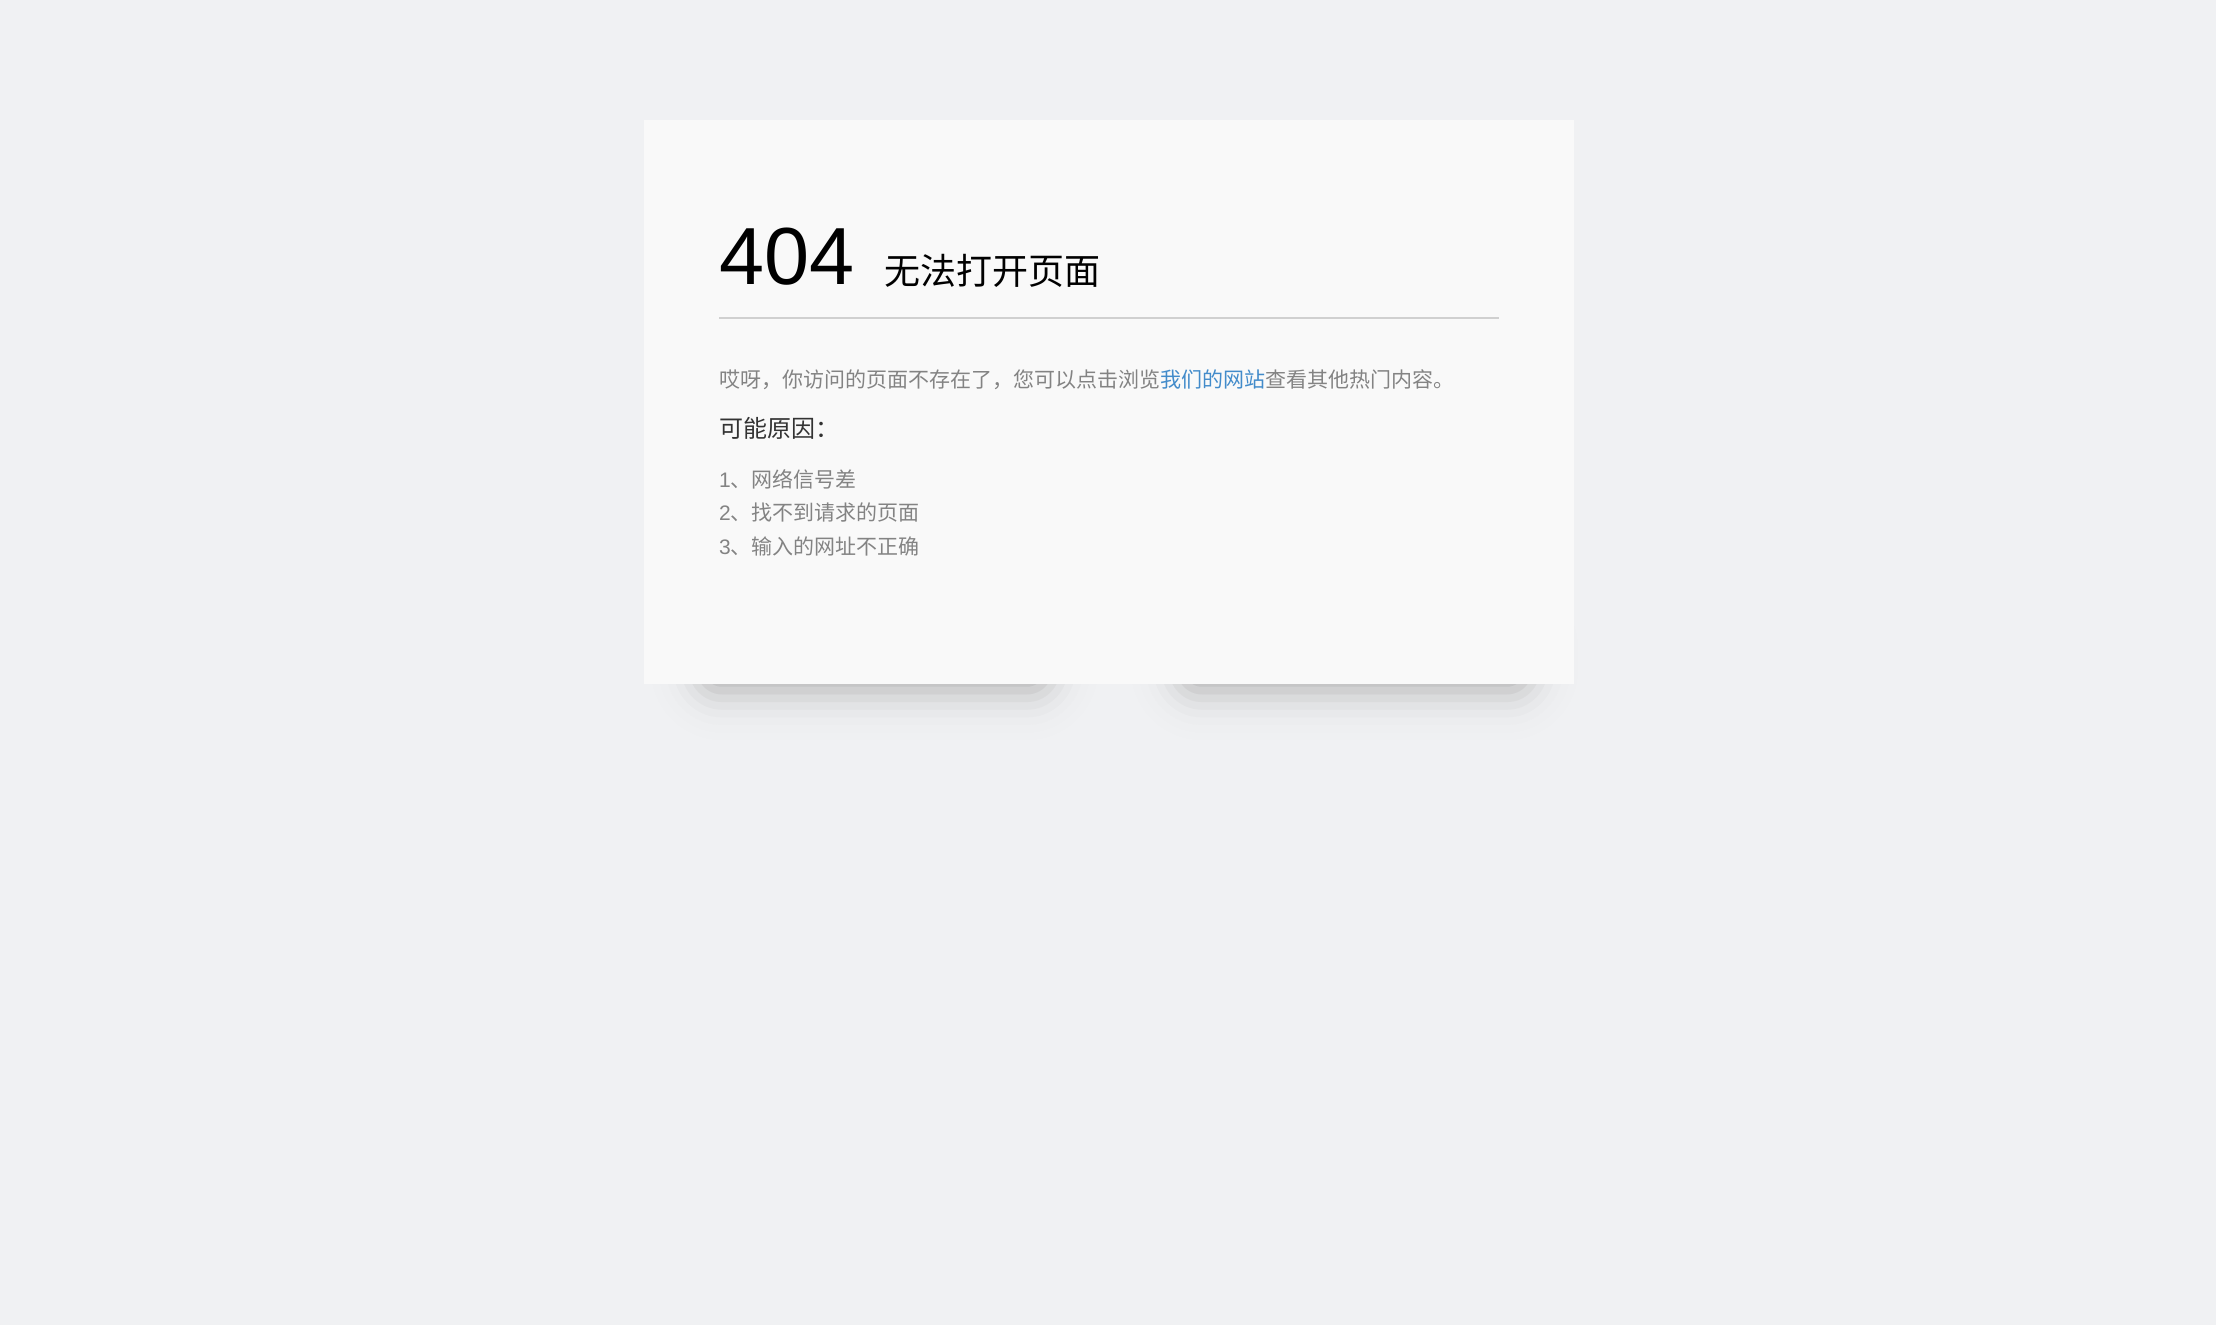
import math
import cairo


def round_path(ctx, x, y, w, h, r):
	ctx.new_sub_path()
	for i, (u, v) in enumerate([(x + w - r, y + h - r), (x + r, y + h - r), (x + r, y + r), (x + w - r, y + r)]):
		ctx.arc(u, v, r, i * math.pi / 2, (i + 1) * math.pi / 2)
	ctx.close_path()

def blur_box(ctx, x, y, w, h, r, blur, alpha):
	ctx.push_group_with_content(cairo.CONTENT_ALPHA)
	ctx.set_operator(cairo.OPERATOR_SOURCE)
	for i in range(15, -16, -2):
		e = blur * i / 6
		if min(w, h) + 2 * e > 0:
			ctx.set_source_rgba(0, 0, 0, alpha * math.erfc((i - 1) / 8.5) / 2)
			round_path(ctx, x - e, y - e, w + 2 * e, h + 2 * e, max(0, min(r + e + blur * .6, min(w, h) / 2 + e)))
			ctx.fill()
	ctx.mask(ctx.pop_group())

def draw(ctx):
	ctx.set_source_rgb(0.941, 0.945, 0.953)
	ctx.paint()
	ctx.set_source_rgb(0.6, 0.6, 0.6)
	blur_box(ctx, 708, 635, 333, 48, 0, 23, 1)
	blur_box(ctx, 1188, 635, 333, 48, 0, 23, 1)
	ctx.set_source_rgb(0.976, 0.976, 0.976)
	ctx.rectangle(644, 120, 930, 564)
	ctx.fill()
	ctx.set_source_rgb(0.816, 0.816, 0.816)
	ctx.rectangle(719, 317, 780, 2)
	ctx.fill()
	ctx.select_font_face('Liberation Sans')
	ctx.set_font_size(81)
	ctx.set_source_rgb(0, 0, 0)
	ctx.move_to(719, 284)
	ctx.show_text('404')
	ctx.select_font_face('Noto Sans CJK SC')
	ctx.set_font_size(36)
	ctx.move_to(884, 284)
	ctx.show_text('无法打开页面')
	ctx.set_font_size(21)
	ctx.set_source_rgb(0.514, 0.514, 0.514)
	ctx.move_to(719, 387)
	ctx.show_text('哎呀，你访问的页面不存在了，您可以点击浏览')
	ctx.set_source_rgb(0.259, 0.545, 0.792)
	ctx.move_to(1160, 387)
	ctx.show_text('我们的网站')
	ctx.set_source_rgb(0.514, 0.514, 0.514)
	ctx.move_to(1265, 387)
	ctx.show_text('查看其他热门内容。')
	ctx.set_font_size(24)
	ctx.set_source_rgb(0.2, 0.2, 0.2)
	ctx.move_to(719, 437)
	ctx.show_text('可能原因：')
	ctx.select_font_face('Liberation Sans')
	ctx.set_font_size(21)
	ctx.set_source_rgb(0.514, 0.514, 0.514)
	ctx.move_to(719, 487)
	ctx.show_text('1')
	ctx.select_font_face('Noto Sans CJK SC')
	ctx.move_to(730, 487)
	ctx.show_text('、网络信号差')
	ctx.select_font_face('Liberation Sans')
	ctx.move_to(719, 520)
	ctx.show_text('2')
	ctx.select_font_face('Noto Sans CJK SC')
	ctx.move_to(730, 520)
	ctx.show_text('、找不到请求的页面')
	ctx.select_font_face('Liberation Sans')
	ctx.move_to(719, 554)
	ctx.show_text('3')
	ctx.select_font_face('Noto Sans CJK SC')
	ctx.move_to(730, 554)
	ctx.show_text('、输入的网址不正确')


surface = cairo.ImageSurface(cairo.FORMAT_RGB24, 2216, 1325)
ctx = cairo.Context(surface)
options = cairo.FontOptions()
options.set_hint_metrics(cairo.HINT_METRICS_OFF)
options.set_hint_style(cairo.HINT_STYLE_NONE)
ctx.set_font_options(options)
ctx.set_miter_limit(4)
draw(ctx)
surface.write_to_png('image.png')
